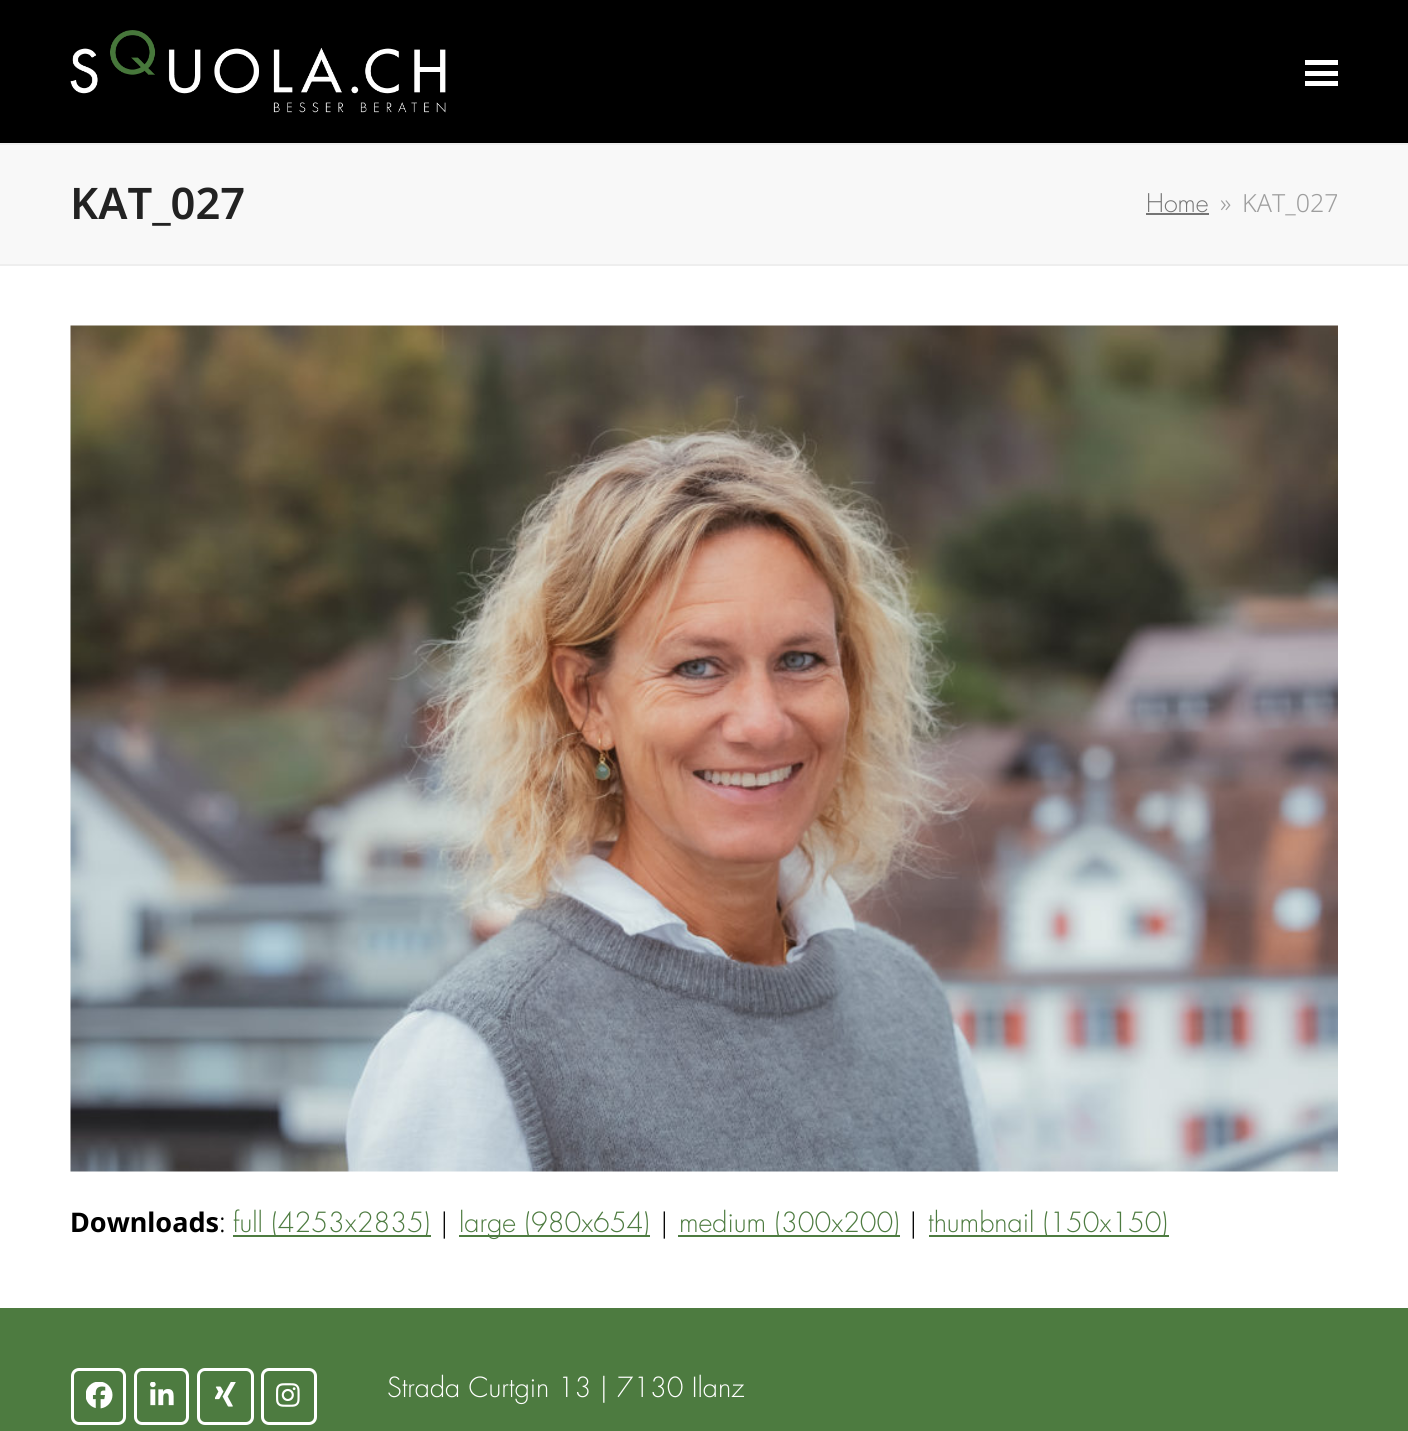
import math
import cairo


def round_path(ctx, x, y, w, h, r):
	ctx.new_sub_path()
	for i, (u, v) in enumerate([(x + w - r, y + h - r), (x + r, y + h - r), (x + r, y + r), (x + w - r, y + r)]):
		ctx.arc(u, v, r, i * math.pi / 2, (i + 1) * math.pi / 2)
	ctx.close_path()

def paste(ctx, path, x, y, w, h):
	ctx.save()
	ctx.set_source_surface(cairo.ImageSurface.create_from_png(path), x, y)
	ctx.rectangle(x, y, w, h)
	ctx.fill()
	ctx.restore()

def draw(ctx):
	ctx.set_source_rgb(1, 1, 1)
	ctx.paint()
	ctx.set_source_rgb(0, 0, 0)
	ctx.rectangle(0, 0, 1408, 143)
	ctx.fill()
	paste(ctx, 'media/1.png', 70, 30, 376, 83)
	ctx.set_source_rgb(1, 1, 1)
	ctx.rectangle(1305, 71, 33, 5)
	ctx.rectangle(1305, 60, 33, 5)
	ctx.rectangle(1305, 81, 33, 5)
	ctx.fill()
	ctx.set_source_rgb(0.969, 0.969, 0.969)
	ctx.rectangle(0, 145, 1408, 119)
	ctx.fill()
	ctx.set_source_rgb(0.933, 0.933, 0.933)
	ctx.rectangle(0, 143, 1408, 2)
	ctx.rectangle(0, 264, 1408, 2)
	ctx.fill()
	ctx.select_font_face('Noto Sans SemiBold')
	ctx.set_font_size(43.5)
	ctx.set_source_rgb(0.133, 0.133, 0.133)
	ctx.move_to(70, 219)
	ctx.show_text('KAT_027')
	ctx.select_font_face('Futura')
	ctx.set_font_size(25)
	ctx.set_source_rgb(0.459, 0.459, 0.459)
	ctx.move_to(1146, 212)
	ctx.show_text('Home')
	ctx.rectangle(1146, 213, 63, 2)
	ctx.fill()
	ctx.select_font_face('Noto Sans Light')
	ctx.set_source_rgb(0.62, 0.62, 0.62)
	ctx.move_to(1220, 212)
	ctx.show_text('»')
	ctx.move_to(1242, 212)
	ctx.show_text('KAT_027')
	paste(ctx, 'media/2.png', 70, 325, 1268, 847)
	ctx.select_font_face('Noto Sans', cairo.FONT_SLANT_NORMAL, cairo.FONT_WEIGHT_BOLD)
	ctx.set_font_size(27)
	ctx.set_source_rgb(0, 0, 0)
	ctx.move_to(70, 1232)
	ctx.show_text('Downloads')
	ctx.select_font_face('Noto Sans Light')
	ctx.move_to(219, 1232)
	ctx.show_text(':')
	ctx.set_source_rgb(0.302, 0.482, 0.251)
	ctx.rectangle(233, 1235, 198, 2)
	ctx.fill()
	ctx.select_font_face('Futura')
	ctx.move_to(233, 1232)
	ctx.show_text('full (4253x2835)')
	ctx.select_font_face('Noto Sans Light')
	ctx.set_source_rgb(0, 0, 0)
	ctx.move_to(437, 1232)
	ctx.show_text('|')
	ctx.set_source_rgb(0.302, 0.482, 0.251)
	ctx.rectangle(459, 1235, 191, 2)
	ctx.fill()
	ctx.select_font_face('Futura')
	ctx.move_to(459, 1232)
	ctx.show_text('large (980x654)')
	ctx.select_font_face('Noto Sans Light')
	ctx.set_source_rgb(0, 0, 0)
	ctx.move_to(657, 1232)
	ctx.show_text('|')
	ctx.set_source_rgb(0.302, 0.482, 0.251)
	ctx.rectangle(678, 1235, 222, 2)
	ctx.fill()
	ctx.select_font_face('Futura')
	ctx.move_to(679, 1232)
	ctx.show_text('medium (300x200)')
	ctx.select_font_face('Noto Sans Light')
	ctx.set_source_rgb(0, 0, 0)
	ctx.move_to(906, 1232)
	ctx.show_text('|')
	ctx.set_source_rgb(0.302, 0.482, 0.251)
	ctx.rectangle(929, 1235, 240, 2)
	ctx.fill()
	ctx.select_font_face('Futura')
	ctx.move_to(928, 1232)
	ctx.show_text('thumbnail (150x150)')
	ctx.rectangle(0, 1308, 1408, 123)
	ctx.fill()
	round_path(ctx, 72.5, 1369.5, 52, 54, 6.5)
	ctx.set_source_rgb(1, 1, 1)
	ctx.set_line_width(3)
	ctx.stroke()
	paste(ctx, 'media/3.png', 86, 1382, 27, 27)
	round_path(ctx, 135.5, 1369.5, 52, 54, 6.5)
	ctx.stroke()
	paste(ctx, 'media/4.png', 150, 1382, 24, 24)
	round_path(ctx, 198.5, 1369.5, 54, 54, 6.5)
	ctx.stroke()
	paste(ctx, 'media/5.png', 215, 1382, 21, 25)
	round_path(ctx, 262.5, 1369.5, 53, 54, 6.5)
	ctx.stroke()
	paste(ctx, 'media/6.png', 276, 1383, 24, 24)
	ctx.move_to(387, 1397)
	ctx.show_text('Strada Curtgin 13 | 7130 Ilanz')


surface = cairo.ImageSurface(cairo.FORMAT_RGB24, 1408, 1431)
ctx = cairo.Context(surface)
options = cairo.FontOptions()
options.set_hint_metrics(cairo.HINT_METRICS_OFF)
options.set_hint_style(cairo.HINT_STYLE_NONE)
ctx.set_font_options(options)
ctx.set_miter_limit(4)
draw(ctx)
surface.write_to_png('image.png')
